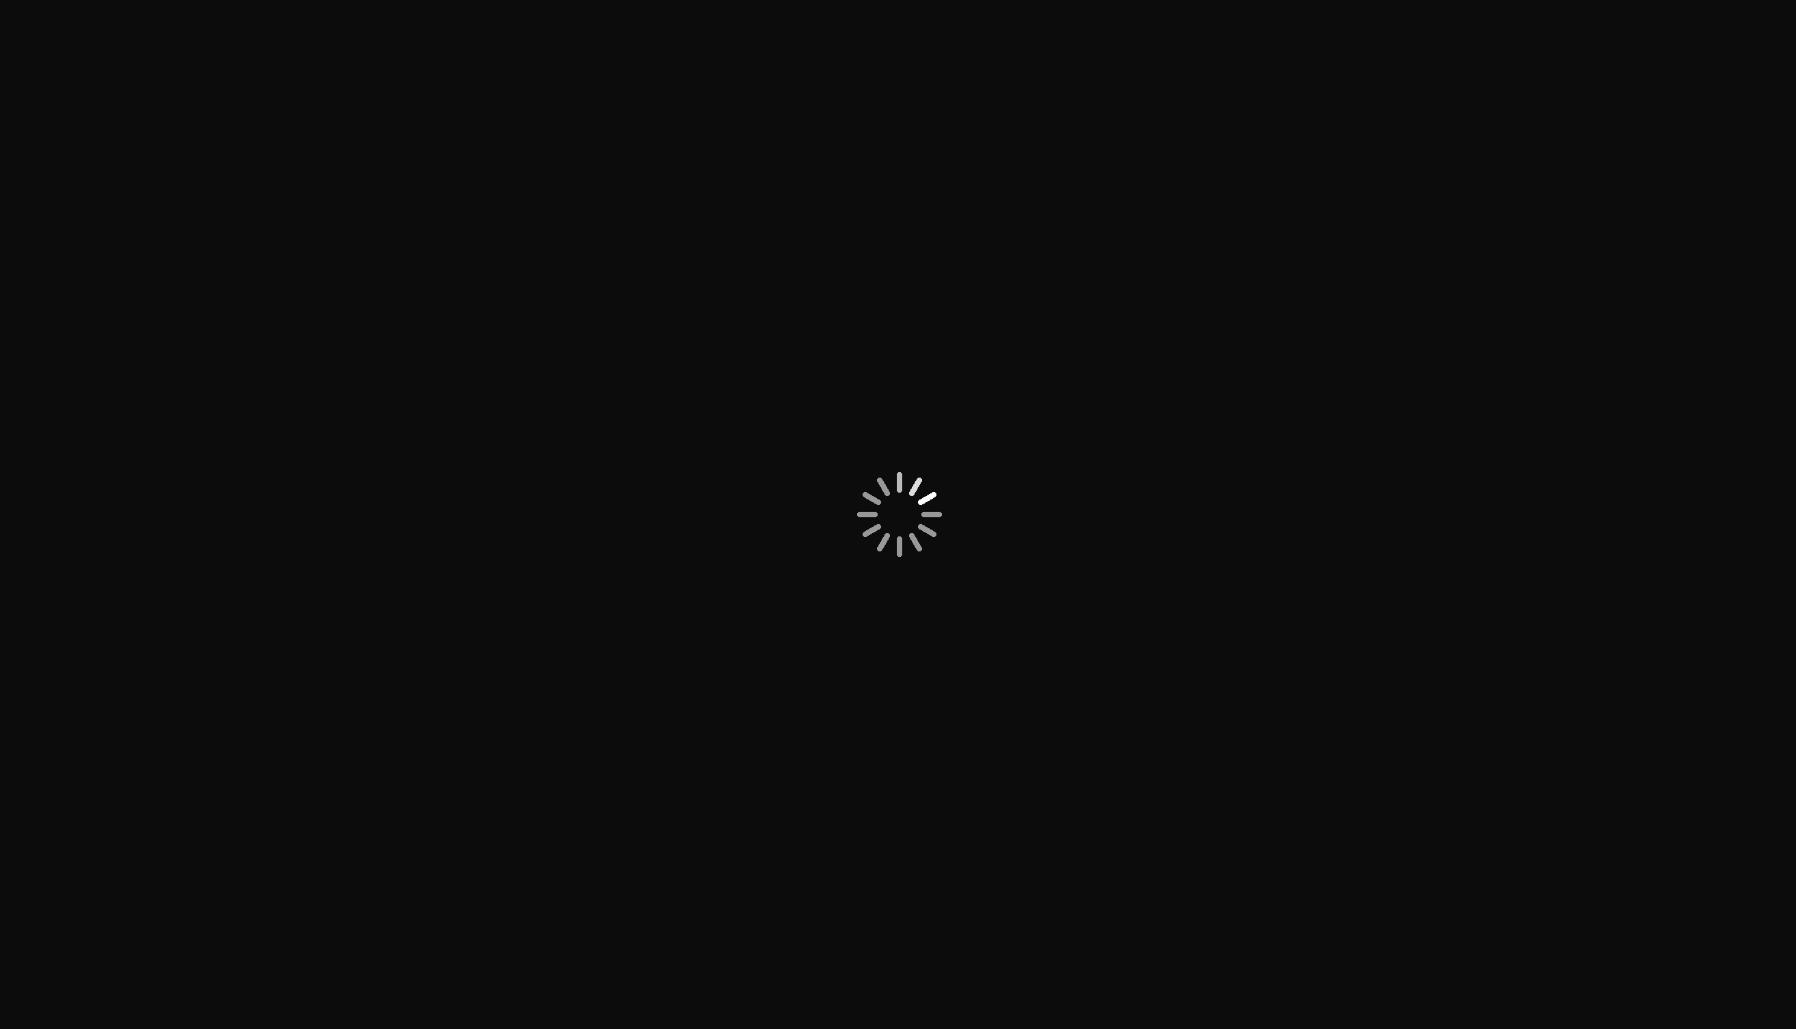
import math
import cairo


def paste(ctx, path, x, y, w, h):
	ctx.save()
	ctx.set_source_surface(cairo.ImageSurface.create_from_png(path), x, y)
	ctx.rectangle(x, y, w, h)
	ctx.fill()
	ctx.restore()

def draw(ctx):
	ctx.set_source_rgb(0.047, 0.047, 0.047)
	ctx.paint()
	paste(ctx, 'media/1.png', 857, 472, 85, 85)


surface = cairo.ImageSurface(cairo.FORMAT_RGB24, 1796, 1029)
ctx = cairo.Context(surface)
options = cairo.FontOptions()
options.set_hint_metrics(cairo.HINT_METRICS_OFF)
options.set_hint_style(cairo.HINT_STYLE_NONE)
ctx.set_font_options(options)
ctx.set_miter_limit(4)
draw(ctx)
surface.write_to_png('image.png')
